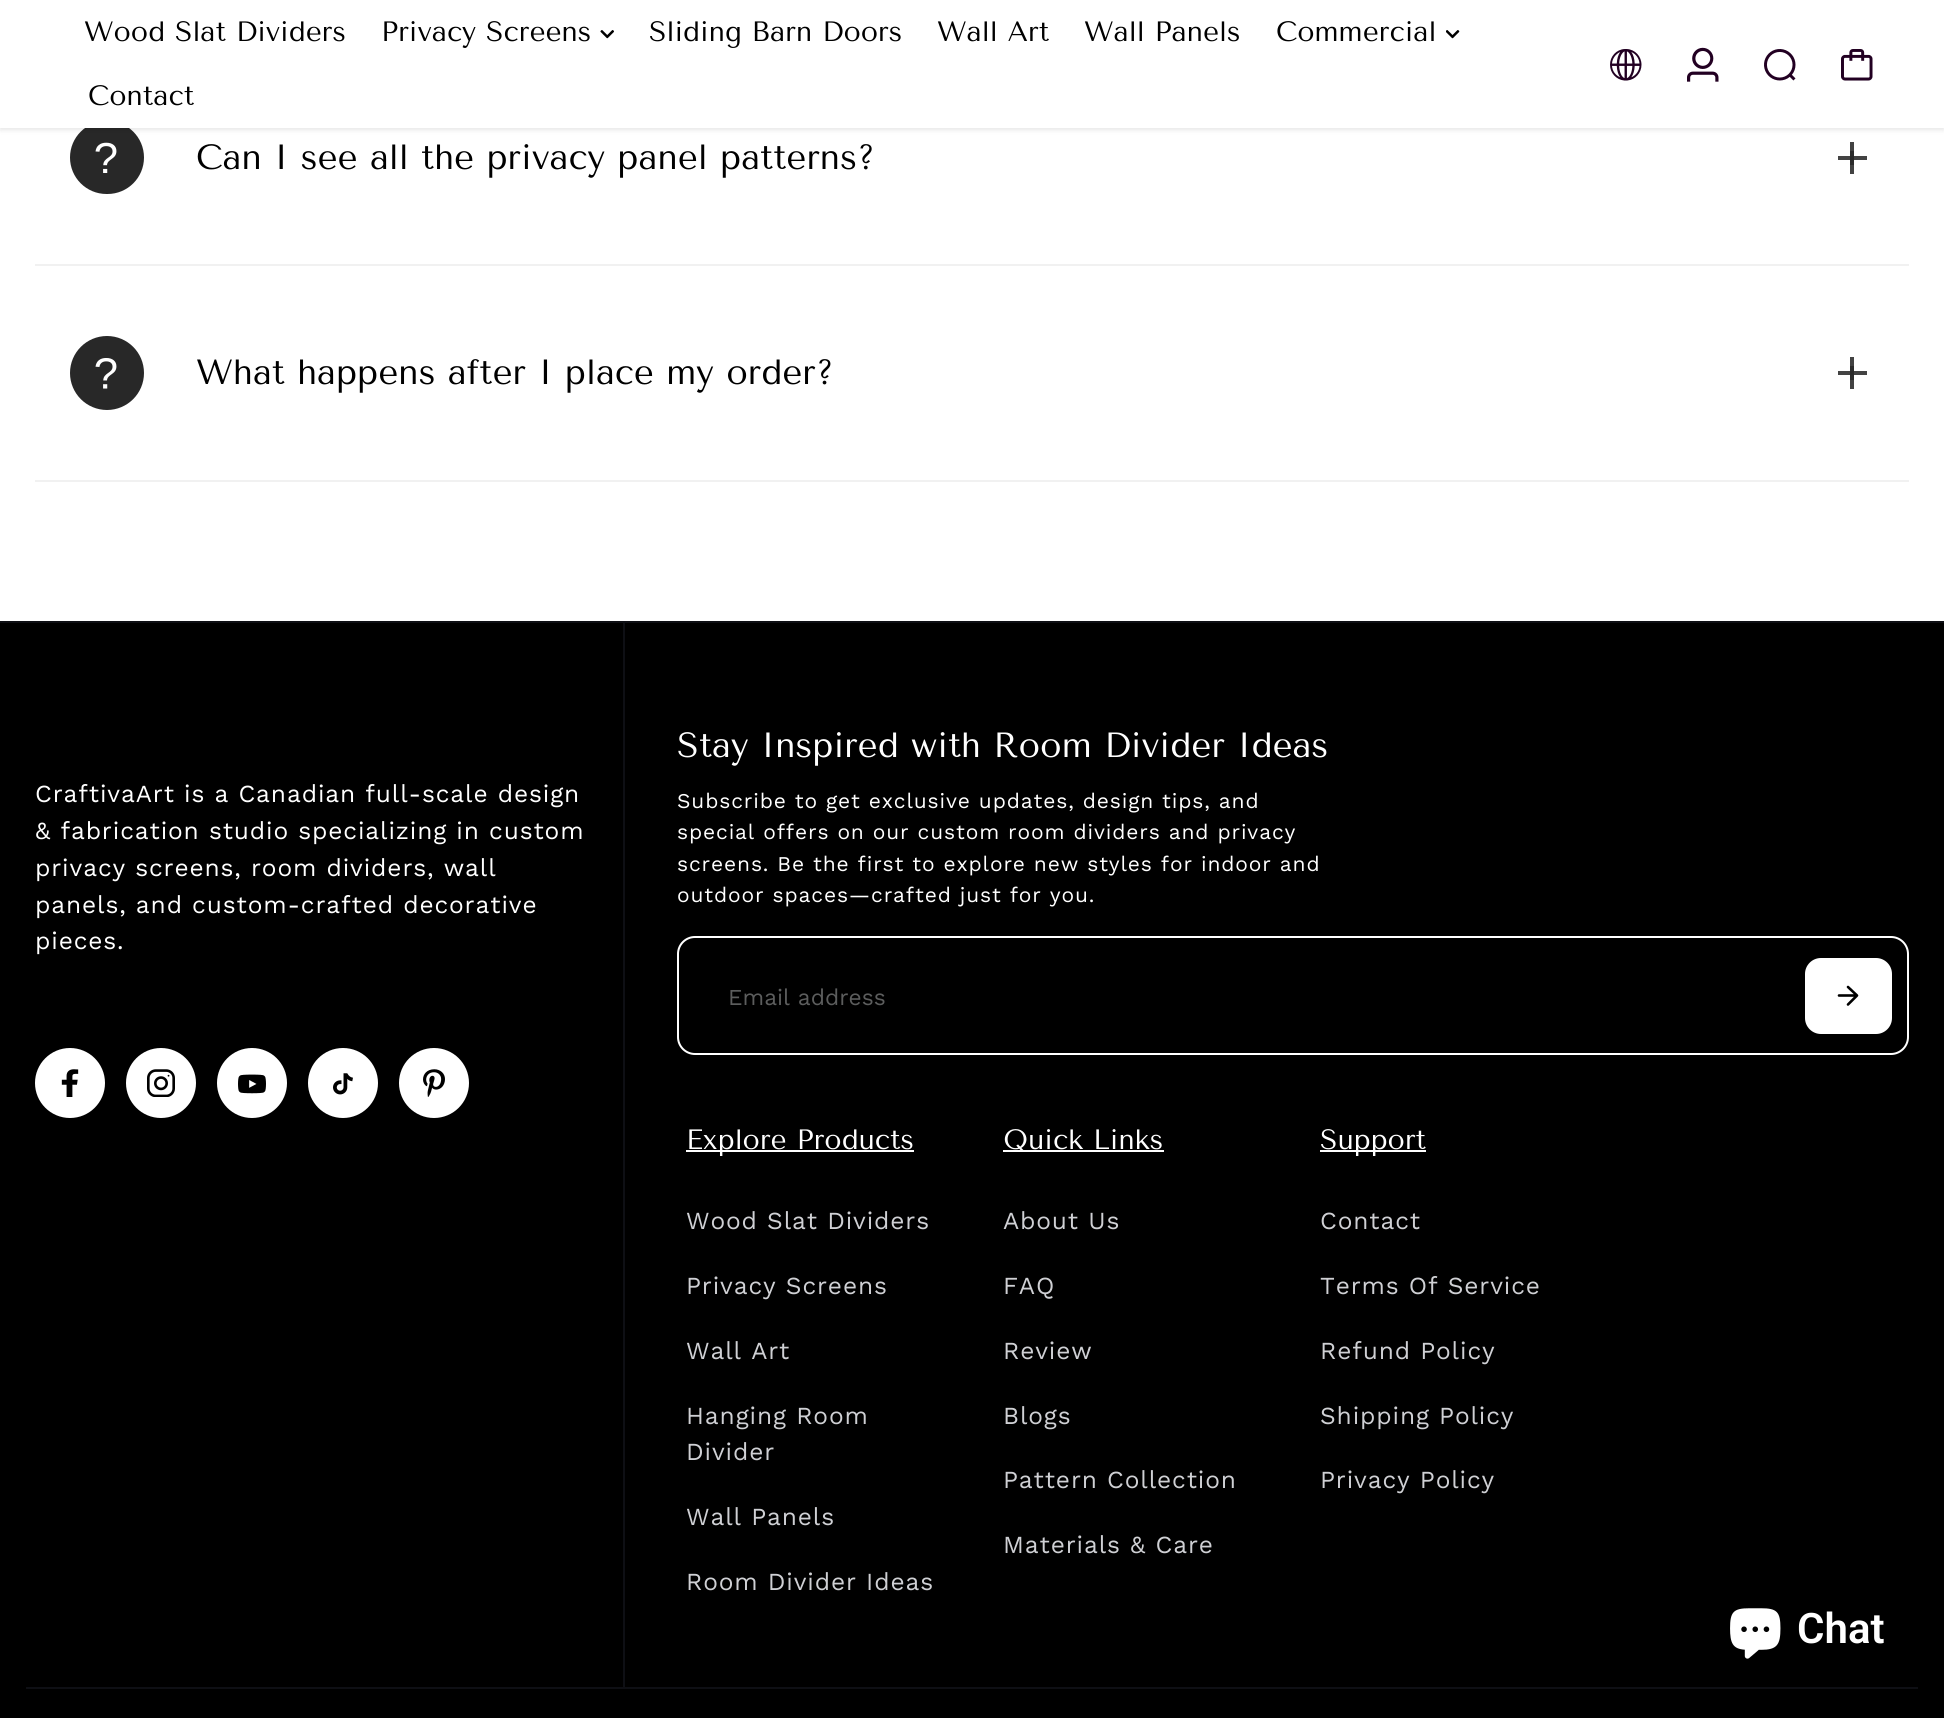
import math
import cairo


def write_spaced(ctx, x, y, s, letter, word):
	ctx.move_to(x, y)
	for ch in s:
		ctx.show_text(ch)
		ctx.rel_move_to(letter + word * (ch == ' '), 0)

def round_path(ctx, x, y, w, h, r):
	ctx.new_sub_path()
	for i, (u, v) in enumerate([(x + w - r, y + h - r), (x + r, y + h - r), (x + r, y + r), (x + w - r, y + r)]):
		ctx.arc(u, v, r, i * math.pi / 2, (i + 1) * math.pi / 2)
	ctx.close_path()

def blur_box(ctx, x, y, w, h, r, blur, alpha):
	ctx.push_group_with_content(cairo.CONTENT_ALPHA)
	ctx.set_operator(cairo.OPERATOR_SOURCE)
	for i in range(15, -16, -2):
		e = blur * i / 6
		if min(w, h) + 2 * e > 0:
			ctx.set_source_rgba(0, 0, 0, alpha * math.erfc((i - 1) / 8.5) / 2)
			round_path(ctx, x - e, y - e, w + 2 * e, h + 2 * e, max(0, min(r + e + blur * .6, min(w, h) / 2 + e)))
			ctx.fill()
	ctx.mask(ctx.pop_group())

def paste(ctx, path, x, y, w, h):
	ctx.save()
	ctx.set_source_surface(cairo.ImageSurface.create_from_png(path), x, y)
	ctx.rectangle(x, y, w, h)
	ctx.fill()
	ctx.restore()

def draw(ctx):
	ctx.set_source_rgb(1, 1, 1)
	ctx.paint()
	ctx.set_source_rgb(0.259, 0.259, 0.259)
	ctx.rectangle(1850, 380, 4, 9)
	ctx.rectangle(1850, 357, 4, 9)
	ctx.fill()
	ctx.set_source_rgb(0.169, 0.169, 0.169)
	ctx.rectangle(1850, 366, 4, 14)
	ctx.fill()
	ctx.set_source_rgb(0.259, 0.259, 0.259)
	ctx.rectangle(1850, 165, 4, 9)
	ctx.rectangle(1850, 142, 4, 9)
	ctx.fill()
	ctx.set_source_rgb(0.169, 0.169, 0.169)
	ctx.rectangle(1850, 151, 4, 14)
	ctx.fill()
	ctx.set_source_rgb(0.157, 0.157, 0.157)
	round_path(ctx, 70, 121, 74, 73, 36.5)
	ctx.fill()
	ctx.set_source_rgb(0, 0, 0)
	blur_box(ctx, 0, 2, 1944, 128, 0, 2.5, 0.1)
	ctx.set_source_rgb(1, 1, 1)
	ctx.rectangle(0, 0, 1944, 128)
	ctx.fill()
	ctx.select_font_face('Tenor Sans')
	ctx.set_font_size(28)
	ctx.set_source_rgb(0, 0, 0)
	ctx.move_to(84, 41)
	ctx.show_text('Wood Slat Dividers')
	ctx.move_to(381, 41)
	ctx.show_text('Privacy Screens')
	paste(ctx, 'media/1.png', 600, 30, 14, 9)
	for x, y, s in [
		(649, 41, 'Sliding Barn Doors'),
		(937, 41, 'Wall Art'),
		(1084, 41, 'Wall Panels'),
		(1276, 41, 'Commercial'),
	]:
		ctx.move_to(x, y)
		ctx.show_text(s)
	paste(ctx, 'media/2.png', 1446, 30, 14, 9)
	ctx.move_to(88, 105)
	ctx.show_text('Contact')
	paste(ctx, 'media/3.png', 1610, 49, 32, 32)
	paste(ctx, 'media/4.png', 1687, 47, 32, 35)
	paste(ctx, 'media/5.png', 1764, 49, 32, 32)
	paste(ctx, 'media/6.png', 1841, 49, 32, 32)
	ctx.set_source_rgb(0.945, 0.945, 0.945)
	ctx.rectangle(35, 264, 1874, 2)
	ctx.fill()
	paste(ctx, 'media/7.png', 95, 142, 22, 31)
	ctx.set_font_size(35)
	ctx.set_source_rgb(0, 0, 0)
	ctx.move_to(196, 169)
	ctx.show_text('Can I see all the privacy panel patterns?')
	ctx.set_source_rgb(0.263, 0.263, 0.263)
	ctx.rectangle(1838, 156, 29, 4)
	ctx.fill()
	ctx.set_source_rgb(0.157, 0.157, 0.157)
	ctx.rectangle(1850, 156, 4, 4)
	ctx.fill()
	ctx.set_source_rgb(0.945, 0.945, 0.945)
	ctx.rectangle(35, 480, 1874, 2)
	ctx.fill()
	ctx.set_source_rgb(0.157, 0.157, 0.157)
	ctx.arc(107, 373, 37, 0, 2 * math.pi)
	ctx.fill()
	paste(ctx, 'media/8.png', 95, 358, 22, 31)
	ctx.set_source_rgb(0, 0, 0)
	ctx.move_to(196, 384)
	ctx.show_text('What happens after I place my order?')
	ctx.set_source_rgb(0.263, 0.263, 0.263)
	ctx.rectangle(1838, 371, 29, 4)
	ctx.fill()
	ctx.set_source_rgb(0.157, 0.157, 0.157)
	ctx.rectangle(1850, 371, 4, 4)
	ctx.fill()
	ctx.set_source_rgb(0, 0, 0)
	ctx.rectangle(0, 623, 1944, 1095)
	ctx.fill()
	ctx.set_source_rgb(0.055, 0.059, 0.082)
	ctx.rectangle(0, 621, 1944, 2)
	ctx.rectangle(623, 623, 2, 1064)
	ctx.fill()
	ctx.select_font_face('Work Sans')
	ctx.set_font_size(24.5)
	ctx.set_source_rgb(1, 1, 1)
	for x, y, s in [
		(35, 802, 'CraftivaArt is a Canadian full-scale design'),
		(35, 839, '& fabrication studio specializing in custom'),
		(35, 876, 'privacy screens, room dividers, wall'),
		(35, 913, 'panels, and custom-crafted decorative'),
		(35, 949, 'pieces.'),
	]:
		write_spaced(ctx, x, y, s, 0.88, 0)
	ctx.new_path()
	ctx.arc(70, 1083, 35, 0, 2 * math.pi)
	ctx.fill()
	paste(ctx, 'media/9.png', 61, 1069, 18, 28)
	ctx.arc(161, 1083, 35, 0, 2 * math.pi)
	ctx.fill()
	paste(ctx, 'media/10.png', 147, 1069, 28, 28)
	ctx.arc(252, 1083, 35, 0, 2 * math.pi)
	ctx.fill()
	paste(ctx, 'media/11.png', 238, 1074, 28, 20)
	ctx.arc(343, 1083, 35, 0, 2 * math.pi)
	ctx.fill()
	paste(ctx, 'media/12.png', 333, 1073, 20, 22)
	ctx.arc(434, 1083, 35, 0, 2 * math.pi)
	ctx.fill()
	paste(ctx, 'media/13.png', 423, 1069, 22, 28)
	ctx.select_font_face('Tenor Sans')
	ctx.set_font_size(35)
	ctx.move_to(677, 757)
	ctx.show_text('Stay Inspired with Room Divider Ideas')
	ctx.select_font_face('Work Sans')
	ctx.set_font_size(21)
	for x, y, s in [
		(677, 808, 'Subscribe to get exclusive updates, design tips, and'),
		(677, 839, 'special offers on our custom room dividers and privacy'),
		(677, 871, 'screens. Be the first to explore new styles for indoor and'),
		(677, 902, 'outdoor spaces—crafted just for you.'),
	]:
		write_spaced(ctx, x, y, s, 0.88, 0)
	round_path(ctx, 678, 937, 1230, 117, 17)
	ctx.stroke()
	ctx.set_font_size(22.75)
	ctx.set_source_rgb(0.361, 0.365, 0.365)
	ctx.move_to(728, 1005)
	ctx.show_text('Email address')
	ctx.set_source_rgb(1, 1, 1)
	round_path(ctx, 1804, 957, 89, 78, 17)
	ctx.fill_preserve()
	ctx.set_source_rgb(0, 0, 0)
	ctx.stroke()
	ctx.new_path()
	ctx.move_to(1839, 995.5)
	ctx.line_to(1856, 995.5)
	ctx.move_to(1848, 1004.5)
	ctx.line_to(1857, 995.5)
	ctx.line_to(1848, 987)
	ctx.set_line_width(2.6)
	ctx.set_line_cap(cairo.LINE_CAP_ROUND)
	ctx.set_line_join(cairo.LINE_JOIN_ROUND)
	ctx.stroke()
	ctx.set_source_rgb(1, 1, 1)
	ctx.rectangle(686, 1150, 228, 2)
	ctx.fill()
	ctx.select_font_face('Tenor Sans')
	ctx.set_font_size(28)
	ctx.move_to(686, 1149)
	ctx.show_text('Explore Products')
	ctx.select_font_face('Work Sans')
	ctx.set_font_size(24.5)
	ctx.set_source_rgb(0.812, 0.816, 0.831)
	for x, y, s in [
		(686, 1229, 'Wood Slat Dividers'),
		(686, 1294, 'Privacy Screens'),
		(686, 1359, 'Wall Art'),
		(686, 1424, 'Hanging Room'),
		(686, 1460, 'Divider'),
		(686, 1525, 'Wall Panels'),
		(686, 1590, 'Room Divider Ideas'),
	]:
		write_spaced(ctx, x, y, s, 0.88, 0)
	ctx.set_source_rgb(1, 1, 1)
	ctx.rectangle(1003, 1150, 161, 2)
	ctx.fill()
	ctx.select_font_face('Tenor Sans')
	ctx.set_font_size(28)
	ctx.move_to(1003, 1149)
	ctx.show_text('Quick Links')
	ctx.select_font_face('Work Sans')
	ctx.set_font_size(24.5)
	ctx.set_source_rgb(0.812, 0.816, 0.831)
	for x, y, s in [
		(1003, 1229, 'About Us'),
		(1003, 1294, 'FAQ'),
		(1003, 1359, 'Review'),
		(1003, 1424, 'Blogs'),
		(1003, 1488, 'Pattern Collection'),
		(1003, 1553, 'Materials & Care'),
	]:
		write_spaced(ctx, x, y, s, 0.88, 0)
	ctx.set_source_rgb(1, 1, 1)
	ctx.rectangle(1320, 1150, 106, 2)
	ctx.fill()
	ctx.select_font_face('Tenor Sans')
	ctx.set_font_size(28)
	ctx.move_to(1320, 1149)
	ctx.show_text('Support')
	ctx.select_font_face('Work Sans')
	ctx.set_font_size(24.5)
	ctx.set_source_rgb(0.812, 0.816, 0.831)
	for x, y, s in [
		(1320, 1229, 'Contact'),
		(1320, 1294, 'Terms Of Service'),
		(1320, 1359, 'Refund Policy'),
		(1320, 1424, 'Shipping Policy'),
		(1320, 1488, 'Privacy Policy'),
	]:
		write_spaced(ctx, x, y, s, 0.88, 0)
	ctx.set_source_rgb(0.055, 0.059, 0.082)
	ctx.rectangle(26, 1687, 1892, 2)
	ctx.fill()
	paste(ctx, 'media/14.png', 1730, 1608, 51, 51)
	ctx.select_font_face('Roboto SemiBold')
	ctx.set_font_size(42)
	ctx.set_source_rgb(1, 1, 1)
	ctx.move_to(1797, 1643)
	ctx.show_text('Chat')


surface = cairo.ImageSurface(cairo.FORMAT_RGB24, 1944, 1718)
ctx = cairo.Context(surface)
options = cairo.FontOptions()
options.set_hint_metrics(cairo.HINT_METRICS_OFF)
options.set_hint_style(cairo.HINT_STYLE_NONE)
ctx.set_font_options(options)
ctx.set_miter_limit(4)
draw(ctx)
surface.write_to_png('image.png')
